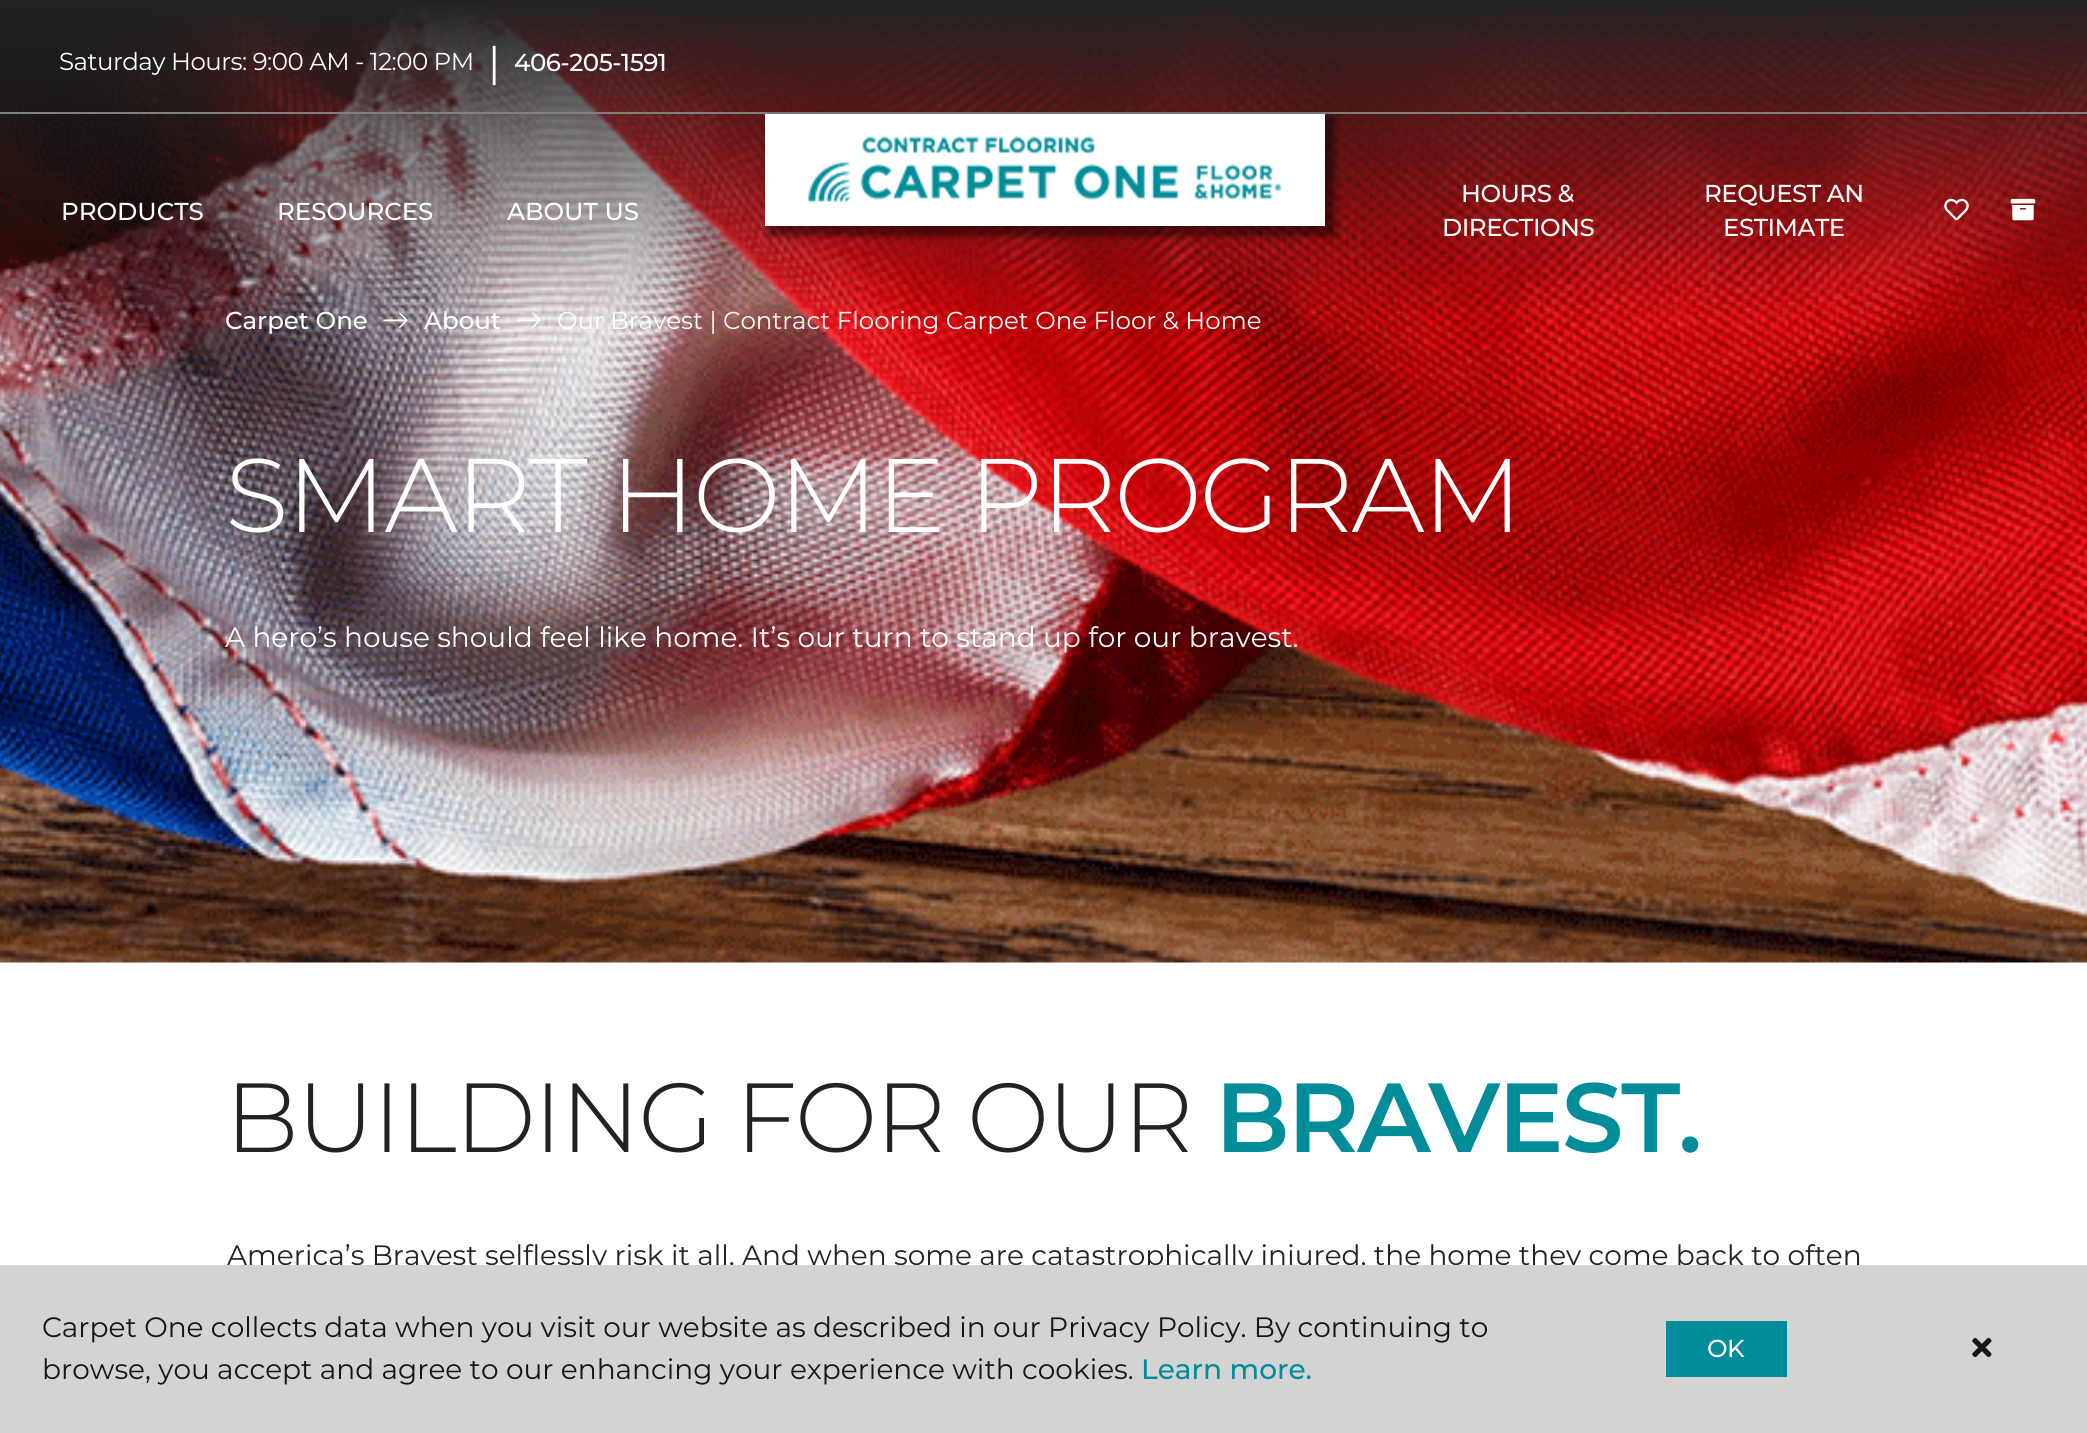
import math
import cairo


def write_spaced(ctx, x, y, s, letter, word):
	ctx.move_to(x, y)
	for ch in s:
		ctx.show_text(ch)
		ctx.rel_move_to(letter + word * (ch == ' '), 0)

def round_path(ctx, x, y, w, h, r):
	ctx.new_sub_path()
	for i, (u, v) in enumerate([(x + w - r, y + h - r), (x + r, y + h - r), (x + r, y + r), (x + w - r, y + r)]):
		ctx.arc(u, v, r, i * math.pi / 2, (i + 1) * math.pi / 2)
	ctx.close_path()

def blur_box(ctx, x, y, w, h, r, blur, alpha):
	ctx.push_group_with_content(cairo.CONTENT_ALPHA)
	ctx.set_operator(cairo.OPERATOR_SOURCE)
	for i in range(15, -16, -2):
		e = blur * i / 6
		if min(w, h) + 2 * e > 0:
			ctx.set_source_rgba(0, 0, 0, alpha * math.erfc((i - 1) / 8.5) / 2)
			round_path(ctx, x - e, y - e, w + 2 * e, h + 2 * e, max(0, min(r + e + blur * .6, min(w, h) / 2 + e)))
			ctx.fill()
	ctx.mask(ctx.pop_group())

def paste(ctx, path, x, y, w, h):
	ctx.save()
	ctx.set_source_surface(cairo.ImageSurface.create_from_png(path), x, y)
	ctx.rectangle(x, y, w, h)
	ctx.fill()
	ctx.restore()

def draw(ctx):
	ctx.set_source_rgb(1, 1, 1)
	ctx.paint()
	paste(ctx, 'media/4.png', 0, 2, 2087, 961)
	ctx.select_font_face('Montserrat Medium')
	ctx.set_font_size(24.5)
	ctx.set_source_rgb(1, 1, 1)
	ctx.move_to(225, 329)
	ctx.show_text('Carpet One')
	paste(ctx, 'media/5.png', 383, 312, 25, 17)
	ctx.move_to(424, 329)
	ctx.show_text('About')
	paste(ctx, 'media/6.png', 516, 312, 25, 16)
	ctx.select_font_face('Montserrat')
	ctx.move_to(557, 329)
	ctx.show_text('Our Bravest | Contract Flooring Carpet One Floor & Home')
	gradient = cairo.LinearGradient(1044, 0, 1044, 324)
	gradient.add_color_stop_rgba(0, 0.133, 0.133, 0.133, 1)
	gradient.add_color_stop_rgba(1, 0.133, 0.133, 0.133, 0)
	ctx.set_source(gradient)
	ctx.rectangle(0, 0, 2087, 317)
	ctx.fill()
	ctx.set_source_rgb(0.502, 0.502, 0.502)
	ctx.rectangle(0, 112, 2087, 2)
	ctx.fill()
	ctx.set_source_rgb(1, 1, 1)
	write_spaced(ctx, 59, 70, 'Saturday Hours: 9:00 AM - 12:00 PM', -0.5, 0)
	ctx.set_font_size(42)
	write_spaced(ctx, 488, 77, '|', -0.5, 0)
	ctx.select_font_face('Montserrat Medium')
	ctx.set_font_size(24.5)
	write_spaced(ctx, 514, 71, '406-205-1591', -0.5, 0)
	for x, y, s in [
		(61, 220, 'PRODUCTS'),
		(277, 220, 'RESOURCES'),
		(507, 220, 'ABOUT US'),
	]:
		ctx.move_to(x, y)
		ctx.show_text(s)
	ctx.set_source_rgb(0, 0, 0)
	blur_box(ctx, 768, 117, 567, 119, 0, 3.5, 0.5)
	ctx.set_source_rgb(1, 1, 1)
	ctx.rectangle(765, 114, 560, 112)
	ctx.fill()
	paste(ctx, 'media/1.png', 808, 135, 474, 67)
	for x, y, s in [
		(1461, 202, 'HOURS &'),
		(1442, 236, 'DIRECTIONS'),
		(1704, 202, 'REQUEST AN'),
		(1723, 236, 'ESTIMATE'),
	]:
		write_spaced(ctx, x, y, s, -0.5, 0)
	paste(ctx, 'media/2.png', 1944, 198, 25, 23)
	paste(ctx, 'media/3.png', 2010, 198, 26, 23)
	ctx.select_font_face('Montserrat Light')
	ctx.set_font_size(104.4)
	write_spaced(ctx, 225, 532, 'SMART HOME PROGRAM', -2.1, 0)
	ctx.select_font_face('Montserrat')
	ctx.set_font_size(28)
	ctx.move_to(225, 647)
	ctx.show_text('A hero’s house should feel like home. It’s our turn to stand up for our bravest.')
	ctx.select_font_face('Montserrat Light')
	ctx.set_font_size(98)
	ctx.set_source_rgb(0.133, 0.133, 0.133)
	write_spaced(ctx, 225, 1152, 'BUILDING FOR OUR', -2, 0)
	ctx.select_font_face('Montserrat SemiBold')
	ctx.set_source_rgb(0, 0.549, 0.6)
	write_spaced(ctx, 1215, 1152, 'BRAVEST.', -2, 0)
	ctx.select_font_face('Montserrat')
	ctx.set_font_size(28)
	ctx.set_source_rgb(0.133, 0.133, 0.133)
	ctx.move_to(227, 1265)
	ctx.show_text('America’s Bravest selflessly risk it all. And when some are catastrophically injured, the home they come back to often')
	ctx.set_source_rgb(0.827, 0.827, 0.831)
	ctx.rectangle(0, 1265, 2087, 168)
	ctx.fill()
	ctx.set_source_rgb(0.078, 0.086, 0.098)
	ctx.move_to(42, 1337)
	ctx.show_text('Carpet One collects data when you visit our website as described in our Privacy Policy. By continuing to')
	ctx.move_to(42, 1379)
	ctx.show_text('browse, you accept and agree to our enhancing your experience with cookies.')
	ctx.select_font_face('Montserrat Medium')
	ctx.set_source_rgb(0, 0.549, 0.6)
	ctx.move_to(1141, 1379)
	ctx.show_text('Learn more.')
	ctx.rectangle(1666, 1321, 121, 56)
	ctx.fill()
	ctx.set_font_size(24.5)
	ctx.set_source_rgb(1, 1, 1)
	write_spaced(ctx, 1707, 1357, 'OK', -0.5, 0)
	paste(ctx, 'media/7.png', 1972, 1337, 20, 21)


surface = cairo.ImageSurface(cairo.FORMAT_RGB24, 2087, 1433)
ctx = cairo.Context(surface)
options = cairo.FontOptions()
options.set_hint_metrics(cairo.HINT_METRICS_OFF)
options.set_hint_style(cairo.HINT_STYLE_NONE)
ctx.set_font_options(options)
ctx.set_miter_limit(4)
draw(ctx)
surface.write_to_png('image.png')
